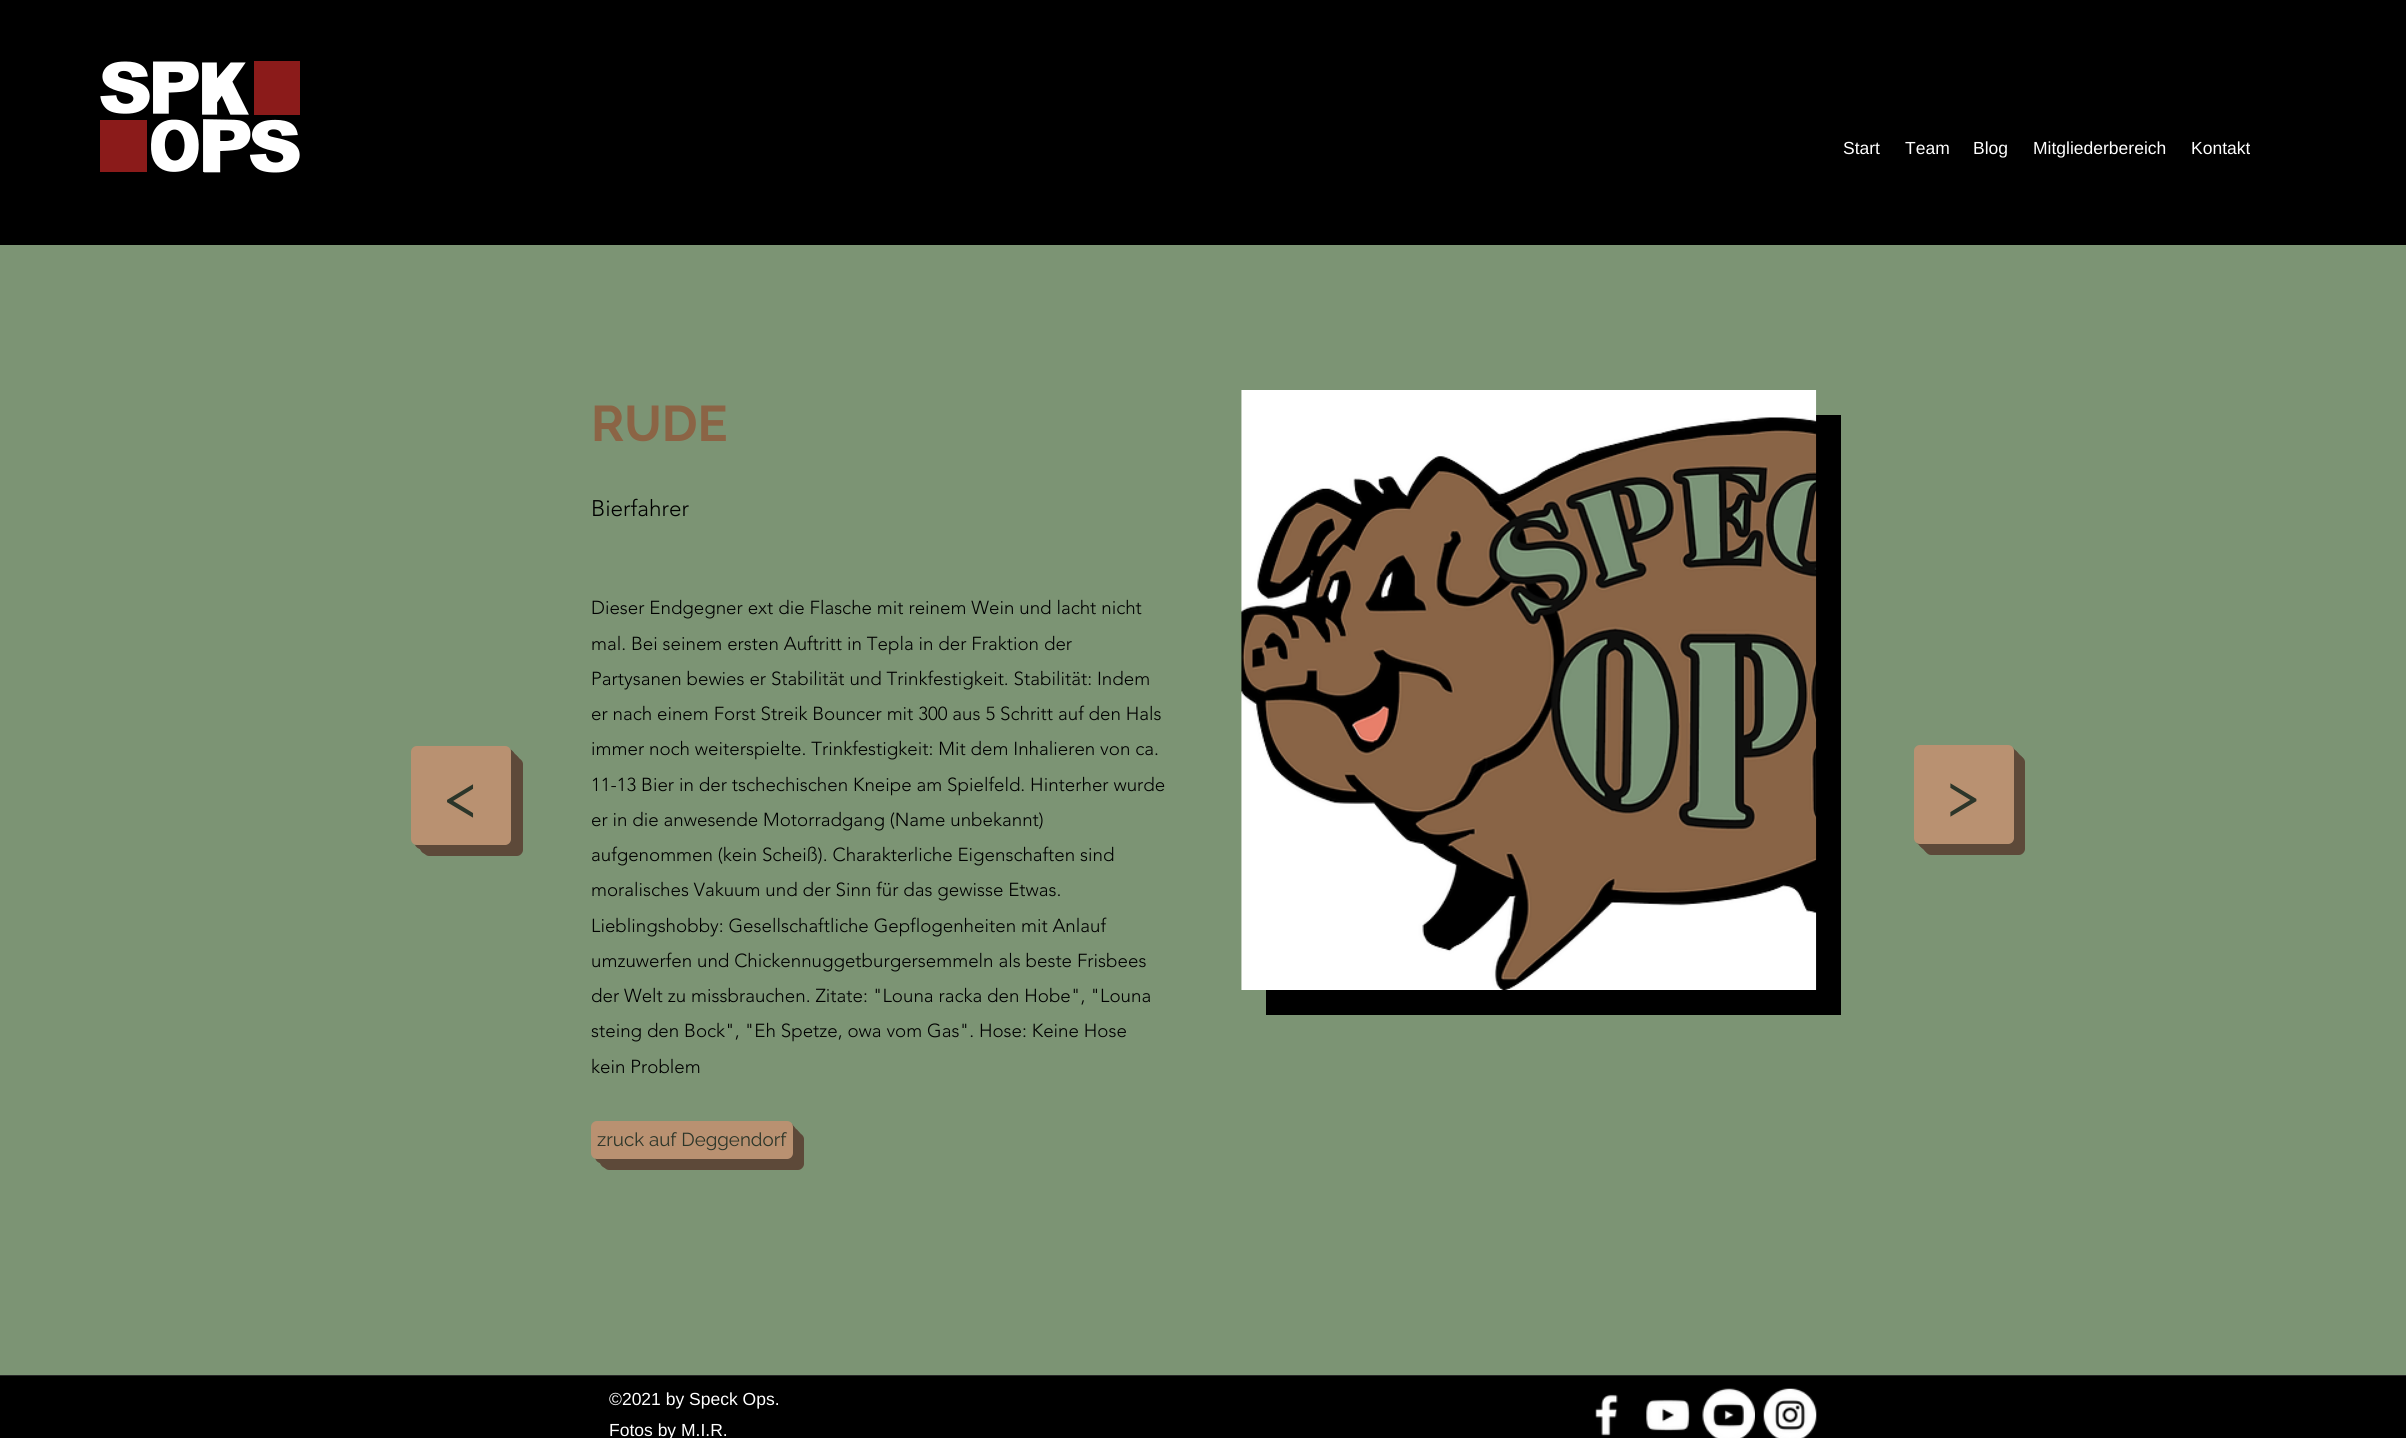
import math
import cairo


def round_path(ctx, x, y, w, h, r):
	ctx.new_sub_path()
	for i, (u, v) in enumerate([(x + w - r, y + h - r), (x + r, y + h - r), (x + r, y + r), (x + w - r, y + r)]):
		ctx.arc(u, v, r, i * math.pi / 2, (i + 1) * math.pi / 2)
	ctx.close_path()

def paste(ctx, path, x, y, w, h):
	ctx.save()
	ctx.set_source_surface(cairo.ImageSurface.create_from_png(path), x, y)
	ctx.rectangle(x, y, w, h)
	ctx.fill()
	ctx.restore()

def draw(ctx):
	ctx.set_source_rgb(0.486, 0.58, 0.455)
	ctx.paint()
	ctx.set_source_rgb(0, 0, 0)
	ctx.rectangle(0, 0, 2406, 245)
	ctx.fill()
	paste(ctx, 'media/1.png', 100, 61, 200, 112)
	ctx.select_font_face('Liberation Sans')
	ctx.set_font_size(17.5)
	ctx.set_source_rgb(1, 1, 1)
	for x, y, s in [
		(1843, 154, 'Start'),
		(1905, 154, 'Team'),
		(1973, 154, 'Blog'),
		(2033, 154, 'Mitgliederbereich'),
		(2191, 154, 'Kontakt'),
	]:
		ctx.move_to(x, y)
		ctx.show_text(s)
	ctx.select_font_face('Raleway', cairo.FONT_SLANT_NORMAL, cairo.FONT_WEIGHT_BOLD)
	ctx.set_font_size(50)
	ctx.set_source_rgb(0.545, 0.392, 0.271)
	ctx.move_to(591, 441)
	ctx.show_text('RUDE')
	ctx.select_font_face('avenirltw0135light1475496 Light')
	ctx.set_font_size(22.5)
	ctx.set_source_rgb(0, 0, 0)
	ctx.move_to(591, 516)
	ctx.show_text('Bierfahrer')
	ctx.set_source_rgb(0.365, 0.286, 0.224)
	ctx.new_path()
	ctx.move_to(423, 845)
	ctx.line_to(423, 850)
	ctx.curve_to(423, 853, 426, 856, 429, 856)
	ctx.line_to(517, 856)
	ctx.curve_to(520, 856, 523, 853, 523, 850)
	ctx.line_to(523, 764)
	ctx.curve_to(523, 761, 520, 758, 517, 758)
	ctx.line_to(511, 758)
	ctx.line_to(511, 839)
	ctx.curve_to(511, 842, 508, 845, 505, 845)
	ctx.close_path()
	ctx.fill()
	ctx.new_path()
	ctx.move_to(420, 845)
	ctx.line_to(420, 848)
	ctx.curve_to(420, 851, 423, 854, 426, 854)
	ctx.line_to(514, 854)
	ctx.curve_to(517, 854, 520, 851, 520, 848)
	ctx.line_to(520, 761)
	ctx.curve_to(520, 758, 517, 755, 514, 755)
	ctx.line_to(511, 755)
	ctx.line_to(511, 839)
	ctx.curve_to(511, 842, 508, 845, 505, 845)
	ctx.close_path()
	ctx.fill()
	ctx.new_path()
	ctx.move_to(418, 845)
	ctx.curve_to(418, 848, 421, 851, 424, 851)
	ctx.line_to(512, 851)
	ctx.curve_to(515, 851, 518, 848, 518, 845)
	ctx.line_to(518, 759)
	ctx.curve_to(518, 756, 515, 753, 512, 753)
	ctx.line_to(511, 753)
	ctx.line_to(511, 839)
	ctx.curve_to(511, 842, 508, 845, 505, 845)
	ctx.close_path()
	ctx.fill()
	ctx.new_path()
	ctx.move_to(415, 845)
	ctx.curve_to(416, 847, 418, 849, 421, 849)
	ctx.line_to(509, 849)
	ctx.curve_to(512, 849, 515, 846, 515, 843)
	ctx.line_to(515, 756)
	ctx.curve_to(515, 753, 513, 751, 511, 750)
	ctx.line_to(511, 752)
	ctx.line_to(511, 839)
	ctx.curve_to(511, 842, 508, 845, 505, 845)
	ctx.line_to(418, 845)
	ctx.close_path()
	ctx.fill()
	ctx.new_path()
	ctx.move_to(415, 844)
	ctx.curve_to(416, 845, 417, 846, 419, 846)
	ctx.line_to(507, 846)
	ctx.curve_to(510, 846, 513, 843, 513, 840)
	ctx.line_to(513, 754)
	ctx.curve_to(513, 752, 512, 750, 510, 749)
	ctx.curve_to(511, 750, 511, 751, 511, 752)
	ctx.line_to(511, 839)
	ctx.curve_to(511, 842, 508, 845, 505, 845)
	ctx.line_to(418, 845)
	ctx.close_path()
	ctx.fill()
	ctx.set_source_rgb(0.725, 0.569, 0.443)
	round_path(ctx, 411, 746, 100, 99, 6)
	ctx.fill()
	ctx.select_font_face('Raleway')
	ctx.set_font_size(62)
	ctx.set_source_rgb(0.173, 0.208, 0.161)
	ctx.move_to(445, 817)
	ctx.show_text('<')
	ctx.select_font_face('avenirltw0135light1475496 Light')
	ctx.set_font_size(18.75)
	ctx.set_source_rgb(0, 0, 0)
	for x, y, s in [
		(591, 614, 'Dieser Endgegner ext die Flasche mit reinem Wein und lacht nicht'),
		(591, 650, 'mal. Bei seinem ersten Auftritt in Tepla in der Fraktion der'),
		(591, 685, 'Partysanen bewies er Stabilität und Trinkfestigkeit. Stabilität: Indem'),
		(591, 720, 'er nach einem Forst Streik Bouncer mit 300 aus 5 Schritt auf den Hals'),
		(591, 755, 'immer noch weiterspielte. Trinkfestigkeit: Mit dem Inhalieren von ca.'),
		(591, 791, '11-13 Bier in der tschechischen Kneipe am Spielfeld. Hinterher wurde'),
		(591, 826, 'er in die anwesende Motorradgang (Name unbekannt)'),
		(591, 861, 'aufgenommen (kein Scheiß). Charakterliche Eigenschaften sind'),
		(591, 896, 'moralisches Vakuum und der Sinn für das gewisse Etwas.'),
		(591, 932, 'Lieblingshobby: Gesellschaftliche Gepflogenheiten mit Anlauf'),
		(591, 967, 'umzuwerfen und Chickennuggetburgersemmeln als beste Frisbees'),
		(591, 1002, 'der Welt zu missbrauchen. Zitate: "Louna racka den Hobe", "Louna'),
		(591, 1037, 'steing den Bock", "Eh Spetze, owa vom Gas". Hose: Keine Hose'),
		(591, 1073, 'kein Problem'),
	]:
		ctx.move_to(x, y)
		ctx.show_text(s)
	ctx.set_source_rgb(0.365, 0.286, 0.224)
	ctx.new_path()
	ctx.move_to(603, 1159)
	ctx.line_to(603, 1164)
	ctx.curve_to(603, 1167, 606, 1170, 609, 1170)
	ctx.line_to(798, 1170)
	ctx.curve_to(801, 1170, 804, 1167, 804, 1164)
	ctx.line_to(804, 1139)
	ctx.curve_to(804, 1136, 801, 1133, 798, 1133)
	ctx.line_to(792, 1133)
	ctx.line_to(792, 1152)
	ctx.curve_to(792, 1156, 790, 1159, 786, 1159)
	ctx.close_path()
	ctx.fill()
	ctx.new_path()
	ctx.move_to(600, 1159)
	ctx.line_to(600, 1162)
	ctx.curve_to(600, 1165, 603, 1168, 606, 1168)
	ctx.line_to(795, 1168)
	ctx.curve_to(798, 1168, 801, 1165, 801, 1162)
	ctx.line_to(801, 1136)
	ctx.curve_to(801, 1133, 798, 1130, 795, 1130)
	ctx.line_to(792, 1130)
	ctx.line_to(792, 1152)
	ctx.curve_to(792, 1156, 790, 1159, 786, 1159)
	ctx.close_path()
	ctx.fill()
	ctx.new_path()
	ctx.move_to(598, 1159)
	ctx.curve_to(598, 1170, 623, 1165, 636, 1165)
	ctx.line_to(762, 1165)
	ctx.curve_to(803, 1165, 799, 1172, 799, 1138)
	ctx.curve_to(799, 1133, 799, 1128, 792, 1128)
	ctx.line_to(792, 1152)
	ctx.curve_to(792, 1156, 790, 1159, 786, 1159)
	ctx.close_path()
	ctx.fill()
	ctx.new_path()
	ctx.move_to(595, 1158)
	ctx.curve_to(596, 1161, 598, 1163, 601, 1163)
	ctx.line_to(790, 1163)
	ctx.curve_to(793, 1163, 796, 1160, 796, 1157)
	ctx.line_to(796, 1131)
	ctx.curve_to(796, 1128, 794, 1126, 792, 1125)
	ctx.line_to(792, 1144)
	ctx.curve_to(792, 1149, 794, 1159, 786, 1159)
	ctx.line_to(629, 1159)
	ctx.curve_to(618, 1159, 606, 1163, 595, 1158)
	ctx.close_path()
	ctx.fill()
	ctx.new_path()
	ctx.move_to(595, 1158)
	ctx.curve_to(596, 1159, 597, 1160, 599, 1160)
	ctx.line_to(788, 1160)
	ctx.curve_to(791, 1160, 794, 1157, 794, 1154)
	ctx.line_to(794, 1129)
	ctx.curve_to(794, 1127, 793, 1125, 792, 1124)
	ctx.line_to(792, 1128)
	ctx.line_to(792, 1152)
	ctx.curve_to(792, 1156, 790, 1159, 786, 1159)
	ctx.line_to(598, 1159)
	ctx.close_path()
	ctx.fill()
	ctx.set_source_rgb(0.725, 0.569, 0.443)
	round_path(ctx, 591, 1121, 202, 38, 6)
	ctx.fill()
	ctx.select_font_face('Raleway')
	ctx.set_source_rgb(0.173, 0.208, 0.161)
	ctx.move_to(597, 1146)
	ctx.show_text('zruck auf Deggendorf')
	ctx.set_source_rgb(0, 0, 0)
	ctx.rectangle(1266, 415, 575, 600)
	ctx.fill()
	paste(ctx, 'media/2.png', 1241, 390, 576, 600)
	ctx.set_source_rgb(0.365, 0.286, 0.224)
	ctx.new_path()
	ctx.move_to(1925, 844)
	ctx.line_to(1925, 849)
	ctx.curve_to(1925, 852, 1928, 855, 1931, 855)
	ctx.line_to(2019, 855)
	ctx.curve_to(2022, 855, 2025, 852, 2025, 849)
	ctx.line_to(2025, 762)
	ctx.curve_to(2025, 759, 2022, 756, 2019, 756)
	ctx.line_to(2014, 756)
	ctx.line_to(2014, 838)
	ctx.curve_to(2014, 841, 2011, 844, 2008, 844)
	ctx.close_path()
	ctx.fill()
	ctx.new_path()
	ctx.move_to(1923, 844)
	ctx.line_to(1923, 847)
	ctx.curve_to(1923, 850, 1926, 853, 1929, 853)
	ctx.line_to(2017, 853)
	ctx.curve_to(2020, 853, 2023, 850, 2023, 847)
	ctx.line_to(2023, 760)
	ctx.curve_to(2023, 757, 2020, 754, 2017, 754)
	ctx.line_to(2014, 754)
	ctx.line_to(2014, 838)
	ctx.curve_to(2014, 841, 2011, 844, 2008, 844)
	ctx.close_path()
	ctx.fill()
	ctx.new_path()
	ctx.move_to(1920, 844)
	ctx.curve_to(1920, 847, 1923, 850, 1926, 850)
	ctx.line_to(2014, 850)
	ctx.curve_to(2017, 850, 2020, 847, 2020, 844)
	ctx.line_to(2020, 757)
	ctx.curve_to(2020, 754, 2017, 751, 2014, 751)
	ctx.line_to(2014, 823)
	ctx.curve_to(2014, 827, 2017, 844, 2008, 844)
	ctx.close_path()
	ctx.fill()
	ctx.new_path()
	ctx.move_to(1918, 843)
	ctx.curve_to(1919, 846, 1921, 848, 1924, 848)
	ctx.line_to(2012, 848)
	ctx.curve_to(2015, 848, 2018, 845, 2018, 842)
	ctx.line_to(2018, 755)
	ctx.curve_to(2018, 752, 2016, 750, 2013, 749)
	ctx.line_to(2014, 823)
	ctx.curve_to(2014, 827, 2017, 844, 2008, 844)
	ctx.close_path()
	ctx.fill()
	ctx.new_path()
	ctx.move_to(1916, 842)
	ctx.curve_to(1917, 844, 1919, 845, 1921, 845)
	ctx.line_to(2009, 845)
	ctx.curve_to(2012, 845, 2015, 842, 2015, 839)
	ctx.line_to(2015, 752)
	ctx.curve_to(2015, 750, 2014, 748, 2012, 747)
	ctx.curve_to(2013, 748, 2014, 749, 2014, 751)
	ctx.line_to(2014, 838)
	ctx.curve_to(2014, 841, 2011, 844, 2008, 844)
	ctx.line_to(1920, 844)
	ctx.curve_to(1918, 844, 1917, 843, 1916, 842)
	ctx.close_path()
	ctx.fill()
	ctx.set_source_rgb(0.725, 0.569, 0.443)
	round_path(ctx, 1914, 745, 100, 99, 6)
	ctx.fill()
	ctx.set_font_size(62)
	ctx.set_source_rgb(0.173, 0.208, 0.161)
	ctx.move_to(1947, 816)
	ctx.show_text('>')
	ctx.set_source_rgb(0, 0, 0)
	ctx.rectangle(0, 1376, 2406, 62)
	ctx.fill()
	ctx.set_source_rgb(0.149, 0.149, 0.149)
	ctx.rectangle(0, 1375, 2406, 1)
	ctx.fill()
	ctx.select_font_face('Liberation Sans')
	ctx.set_font_size(17.5)
	ctx.set_source_rgb(1, 1, 1)
	ctx.move_to(609, 1405)
	ctx.show_text('©2021 by Speck Ops.')
	ctx.move_to(609, 1436)
	ctx.show_text('Fotos by M.I.R.')
	paste(ctx, 'media/3.png', 1595, 1394, 23, 42)
	paste(ctx, 'media/4.png', 1646, 1399, 44, 32)
	paste(ctx, 'media/5.png', 1702, 1388, 53, 50)
	paste(ctx, 'media/6.png', 1763, 1388, 54, 50)


surface = cairo.ImageSurface(cairo.FORMAT_RGB24, 2406, 1438)
ctx = cairo.Context(surface)
options = cairo.FontOptions()
options.set_hint_metrics(cairo.HINT_METRICS_OFF)
options.set_hint_style(cairo.HINT_STYLE_NONE)
ctx.set_font_options(options)
ctx.set_miter_limit(4)
draw(ctx)
surface.write_to_png('image.png')
